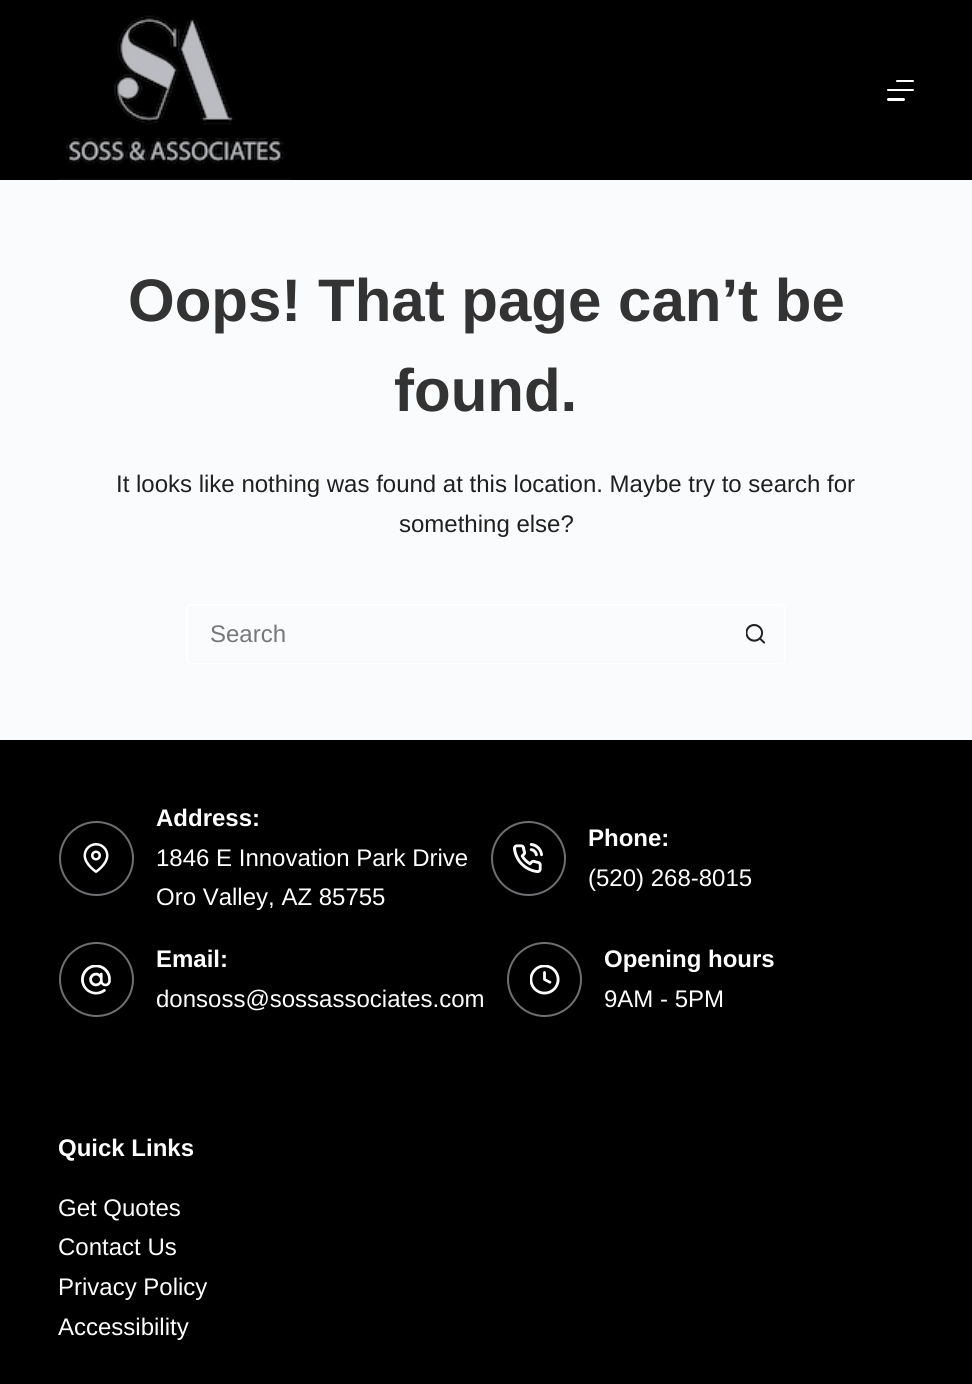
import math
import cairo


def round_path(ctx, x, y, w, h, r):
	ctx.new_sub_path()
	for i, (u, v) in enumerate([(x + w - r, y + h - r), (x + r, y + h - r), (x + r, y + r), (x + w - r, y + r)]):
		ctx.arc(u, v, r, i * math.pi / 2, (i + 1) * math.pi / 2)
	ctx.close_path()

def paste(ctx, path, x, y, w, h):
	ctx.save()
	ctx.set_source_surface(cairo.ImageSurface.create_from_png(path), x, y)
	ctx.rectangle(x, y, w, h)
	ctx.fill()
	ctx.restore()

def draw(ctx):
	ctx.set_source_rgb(0.98, 0.984, 0.988)
	ctx.paint()
	ctx.set_source_rgb(0, 0, 0)
	ctx.rectangle(0, 0, 972, 180)
	ctx.fill()
	paste(ctx, 'media/1.png', 58, 15, 233, 165)
	ctx.set_source_rgb(1, 1, 1)
	round_path(ctx, 896, 80, 18, 2, 1)
	ctx.fill()
	round_path(ctx, 887, 89, 27, 2, 1)
	ctx.fill()
	round_path(ctx, 887, 98, 18, 3, 1.5)
	ctx.fill()
	ctx.select_font_face('Liberation Sans', cairo.FONT_SLANT_NORMAL, cairo.FONT_WEIGHT_BOLD)
	ctx.set_font_size(60)
	ctx.set_source_rgb(0.2, 0.2, 0.2)
	ctx.move_to(128, 321)
	ctx.show_text('Oops! That page can’t be')
	ctx.move_to(394, 411)
	ctx.show_text('found.')
	ctx.select_font_face('Liberation Sans')
	ctx.set_font_size(24)
	ctx.set_source_rgb(0.125, 0.125, 0.125)
	ctx.move_to(116, 492)
	ctx.show_text('It looks like nothing was found at this location. Maybe try to search for')
	ctx.move_to(399, 532)
	ctx.show_text('something else?')
	ctx.set_source_rgb(1, 1, 1)
	ctx.set_fill_rule(cairo.FILL_RULE_EVEN_ODD)
	ctx.new_path()
	ctx.move_to(190, 604)
	ctx.line_to(726, 604)
	ctx.line_to(726, 664)
	ctx.line_to(190, 664)
	ctx.curve_to(188, 664, 186, 662, 186, 660)
	ctx.line_to(186, 609)
	ctx.curve_to(186, 607, 188, 604, 190, 604)
	ctx.close_path()
	ctx.move_to(190, 606)
	ctx.line_to(726, 606)
	ctx.line_to(726, 663)
	ctx.line_to(190, 663)
	ctx.curve_to(189, 663, 188, 662, 188, 660)
	ctx.line_to(188, 609)
	ctx.curve_to(188, 607, 189, 606, 190, 606)
	ctx.close_path()
	ctx.fill()
	ctx.set_source_rgb(0.471, 0.471, 0.475)
	ctx.move_to(210, 642)
	ctx.show_text('Search')
	ctx.set_source_rgb(1, 1, 1)
	ctx.new_path()
	ctx.move_to(726, 604)
	ctx.line_to(782, 604)
	ctx.curve_to(784, 604, 786, 607, 786, 609)
	ctx.line_to(786, 660)
	ctx.curve_to(786, 662, 784, 664, 782, 664)
	ctx.line_to(726, 664)
	ctx.close_path()
	ctx.move_to(726, 606)
	ctx.line_to(782, 606)
	ctx.curve_to(783, 606, 784, 607, 784, 609)
	ctx.line_to(784, 660)
	ctx.curve_to(784, 662, 783, 663, 782, 663)
	ctx.line_to(726, 663)
	ctx.close_path()
	ctx.fill()
	paste(ctx, 'media/2.png', 746, 624, 19, 20)
	ctx.set_source_rgb(0, 0, 0)
	ctx.rectangle(0, 740, 972, 644)
	ctx.fill()
	ctx.arc(96.5, 858.5, 36.5, 0, 2 * math.pi)
	ctx.set_source_rgb(0.427, 0.435, 0.447)
	ctx.stroke()
	paste(ctx, 'media/3.png', 83, 843, 26, 30)
	ctx.select_font_face('Liberation Sans', cairo.FONT_SLANT_NORMAL, cairo.FONT_WEIGHT_BOLD)
	ctx.set_source_rgb(1, 1, 1)
	ctx.move_to(156, 826)
	ctx.show_text('Address:')
	ctx.select_font_face('Liberation Sans')
	ctx.move_to(156, 866)
	ctx.show_text('1846 E Innovation Park Drive')
	ctx.move_to(156, 905)
	ctx.show_text('Oro Valley, AZ 85755')
	ctx.new_path()
	ctx.arc(528.5, 858.5, 36.5, 0, 2 * math.pi)
	ctx.set_source_rgb(0.427, 0.435, 0.447)
	ctx.stroke()
	paste(ctx, 'media/4.png', 513, 843, 30, 30)
	ctx.select_font_face('Liberation Sans', cairo.FONT_SLANT_NORMAL, cairo.FONT_WEIGHT_BOLD)
	ctx.set_source_rgb(1, 1, 1)
	ctx.move_to(588, 846)
	ctx.show_text('Phone:')
	ctx.select_font_face('Liberation Sans')
	ctx.move_to(588, 886)
	ctx.show_text('(520) 268-8015')
	ctx.new_path()
	ctx.arc(96.5, 979.5, 36.5, 0, 2 * math.pi)
	ctx.set_source_rgb(0.427, 0.435, 0.447)
	ctx.stroke()
	paste(ctx, 'media/5.png', 81, 965, 30, 30)
	ctx.select_font_face('Liberation Sans', cairo.FONT_SLANT_NORMAL, cairo.FONT_WEIGHT_BOLD)
	ctx.set_source_rgb(1, 1, 1)
	ctx.move_to(156, 967)
	ctx.show_text('Email:')
	ctx.select_font_face('Liberation Sans')
	ctx.move_to(156, 1007)
	ctx.show_text('donsoss@sossassociates.com')
	ctx.new_path()
	ctx.arc(544.5, 979.5, 36.5, 0, 2 * math.pi)
	ctx.set_source_rgb(0.427, 0.435, 0.447)
	ctx.stroke()
	paste(ctx, 'media/6.png', 530, 965, 30, 30)
	ctx.select_font_face('Liberation Sans', cairo.FONT_SLANT_NORMAL, cairo.FONT_WEIGHT_BOLD)
	ctx.set_source_rgb(1, 1, 1)
	ctx.move_to(604, 967)
	ctx.show_text('Opening hours')
	ctx.select_font_face('Liberation Sans')
	ctx.move_to(604, 1007)
	ctx.show_text('9AM - 5PM')
	ctx.select_font_face('Liberation Sans', cairo.FONT_SLANT_NORMAL, cairo.FONT_WEIGHT_BOLD)
	ctx.move_to(58, 1156)
	ctx.show_text('Quick Links')
	ctx.select_font_face('Liberation Sans')
	for x, y, s in [
		(58, 1216, 'Get Quotes'),
		(58, 1255, 'Contact Us'),
		(58, 1295, 'Privacy Policy'),
		(58, 1335, 'Accessibility'),
	]:
		ctx.move_to(x, y)
		ctx.show_text(s)


surface = cairo.ImageSurface(cairo.FORMAT_RGB24, 972, 1384)
ctx = cairo.Context(surface)
options = cairo.FontOptions()
options.set_hint_metrics(cairo.HINT_METRICS_OFF)
options.set_hint_style(cairo.HINT_STYLE_NONE)
ctx.set_font_options(options)
ctx.set_miter_limit(4)
draw(ctx)
surface.write_to_png('image.png')
